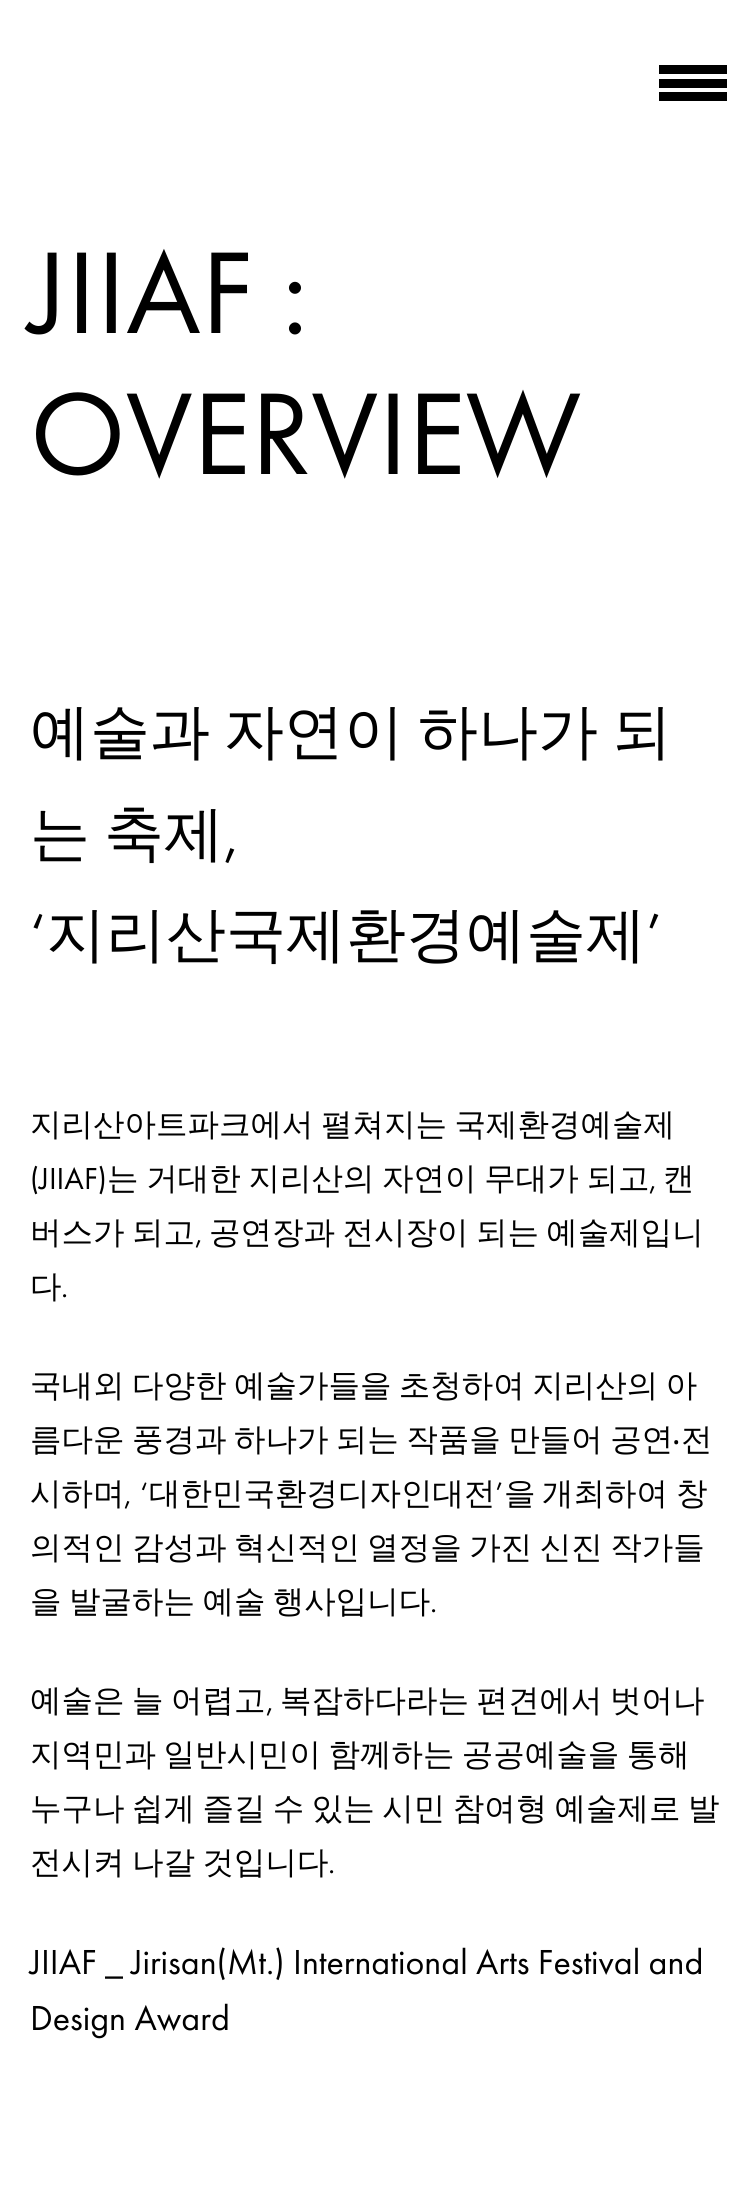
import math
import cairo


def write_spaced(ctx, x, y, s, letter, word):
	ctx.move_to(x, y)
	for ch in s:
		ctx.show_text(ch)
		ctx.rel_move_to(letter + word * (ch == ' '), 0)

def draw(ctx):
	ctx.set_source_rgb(1, 1, 1)
	ctx.paint()
	ctx.set_source_rgb(0, 0, 0)
	ctx.rectangle(659, 65, 68, 9)
	ctx.rectangle(659, 79, 68, 9)
	ctx.rectangle(659, 92, 68, 9)
	ctx.fill()
	ctx.select_font_face('Futura PT')
	ctx.set_font_size(120.5)
	ctx.move_to(30, 333)
	ctx.show_text('JIIAF :')
	ctx.move_to(30, 474)
	ctx.show_text('OVERVIEW')
	ctx.select_font_face('WenQuanYi Zen Hei Medium')
	ctx.set_font_size(60)
	write_spaced(ctx, 30, 752, '예술과 자연이 하나가 되', 0, -4)
	write_spaced(ctx, 30, 854, '는 축제', 0, -4)
	ctx.select_font_face('Futura PT')
	ctx.move_to(224, 854)
	ctx.show_text(',')
	ctx.move_to(30, 955)
	ctx.show_text('‘')
	ctx.select_font_face('WenQuanYi Zen Hei Medium')
	ctx.move_to(46, 955)
	ctx.show_text('지리산국제환경예술제')
	ctx.select_font_face('Futura PT')
	ctx.move_to(646, 955)
	ctx.show_text('’')
	ctx.select_font_face('WenQuanYi Zen Hei Medium')
	ctx.set_font_size(31.5)
	write_spaced(ctx, 30, 1135, '지리산아트파크에서 펼쳐지는 국제환경예술제', 0, -2)
	ctx.select_font_face('Futura PT')
	ctx.move_to(30, 1189)
	ctx.show_text('(JIIAF)')
	ctx.select_font_face('WenQuanYi Zen Hei Medium')
	write_spaced(ctx, 107, 1189, '는 거대한 지리산의 자연이 무대가 되고', 0, -1.75)
	ctx.select_font_face('Futura PT')
	ctx.move_to(649, 1189)
	ctx.show_text(',')
	ctx.select_font_face('WenQuanYi Zen Hei Medium')
	ctx.move_to(663, 1189)
	ctx.show_text('캔')
	write_spaced(ctx, 30, 1243, '버스가 되고', 0, -2)
	ctx.select_font_face('Futura PT')
	ctx.move_to(195, 1243)
	ctx.show_text(',')
	ctx.select_font_face('WenQuanYi Zen Hei Medium')
	write_spaced(ctx, 209, 1243, '공연장과 전시장이 되는 예술제입니', 0, -2)
	ctx.move_to(30, 1297)
	ctx.show_text('다')
	ctx.select_font_face('Futura PT')
	ctx.move_to(61, 1297)
	ctx.show_text('.')
	ctx.select_font_face('WenQuanYi Zen Hei Medium')
	write_spaced(ctx, 30, 1396, '국내외 다양한 예술가들을 초청하여 지리산의 아', 0, -2)
	write_spaced(ctx, 30, 1450, '름다운 풍경과 하나가 되는 작품을 만들어 공연', 0, -2)
	ctx.select_font_face('Noto Sans')
	ctx.move_to(672, 1450)
	ctx.show_text('‧')
	ctx.select_font_face('WenQuanYi Zen Hei Medium')
	ctx.move_to(681, 1450)
	ctx.show_text('전')
	ctx.move_to(30, 1504)
	ctx.show_text('시하며')
	ctx.select_font_face('Futura PT')
	ctx.move_to(124, 1504)
	ctx.show_text(', ‘')
	ctx.select_font_face('WenQuanYi Zen Hei Medium')
	ctx.move_to(149, 1504)
	ctx.show_text('대한민국환경디자인대전')
	ctx.select_font_face('Futura PT')
	ctx.move_to(495, 1504)
	ctx.show_text('’')
	ctx.select_font_face('WenQuanYi Zen Hei Medium')
	for x, y, s in [
		(504, 1504, '을'),
		(542, 1504, '개최하여'),
		(676, 1504, '창'),
	]:
		ctx.move_to(x, y)
		ctx.show_text(s)
	write_spaced(ctx, 30, 1558, '의적인 감성과 혁신적인 열정을 가진 신진 작가들', 0, -2)
	write_spaced(ctx, 30, 1612, '을 발굴하는 예술 행사입니다', 0, -2)
	ctx.select_font_face('Futura PT')
	ctx.move_to(430, 1612)
	ctx.show_text('.')
	ctx.select_font_face('WenQuanYi Zen Hei Medium')
	write_spaced(ctx, 30, 1711, '예술은 늘 어렵고', 0, -2)
	ctx.select_font_face('Futura PT')
	ctx.move_to(266, 1711)
	ctx.show_text(',')
	ctx.select_font_face('WenQuanYi Zen Hei Medium')
	for x, y, s in [
		(280, 1711, '복잡하다라는 편견에서 벗어나'),
		(30, 1765, '지역민과 일반시민이 함께하는 공공예술을 통해'),
		(30, 1819, '누구나 쉽게 즐길 수 있는 시민 참여형 예술제로 발'),
		(30, 1873, '전시켜 나갈 것입니다'),
	]:
		write_spaced(ctx, x, y, s, 0, -2)
	ctx.select_font_face('Futura PT')
	ctx.move_to(328, 1873)
	ctx.show_text('.')
	ctx.set_font_size(36)
	ctx.move_to(30, 1974)
	ctx.show_text('JIIAF _ Jirisan(Mt.) International Arts Festival and')
	ctx.move_to(30, 2030)
	ctx.show_text('Design Award')


surface = cairo.ImageSurface(cairo.FORMAT_RGB24, 749, 2203)
ctx = cairo.Context(surface)
options = cairo.FontOptions()
options.set_hint_metrics(cairo.HINT_METRICS_OFF)
options.set_hint_style(cairo.HINT_STYLE_NONE)
ctx.set_font_options(options)
ctx.set_miter_limit(4)
draw(ctx)
surface.write_to_png('image.png')
